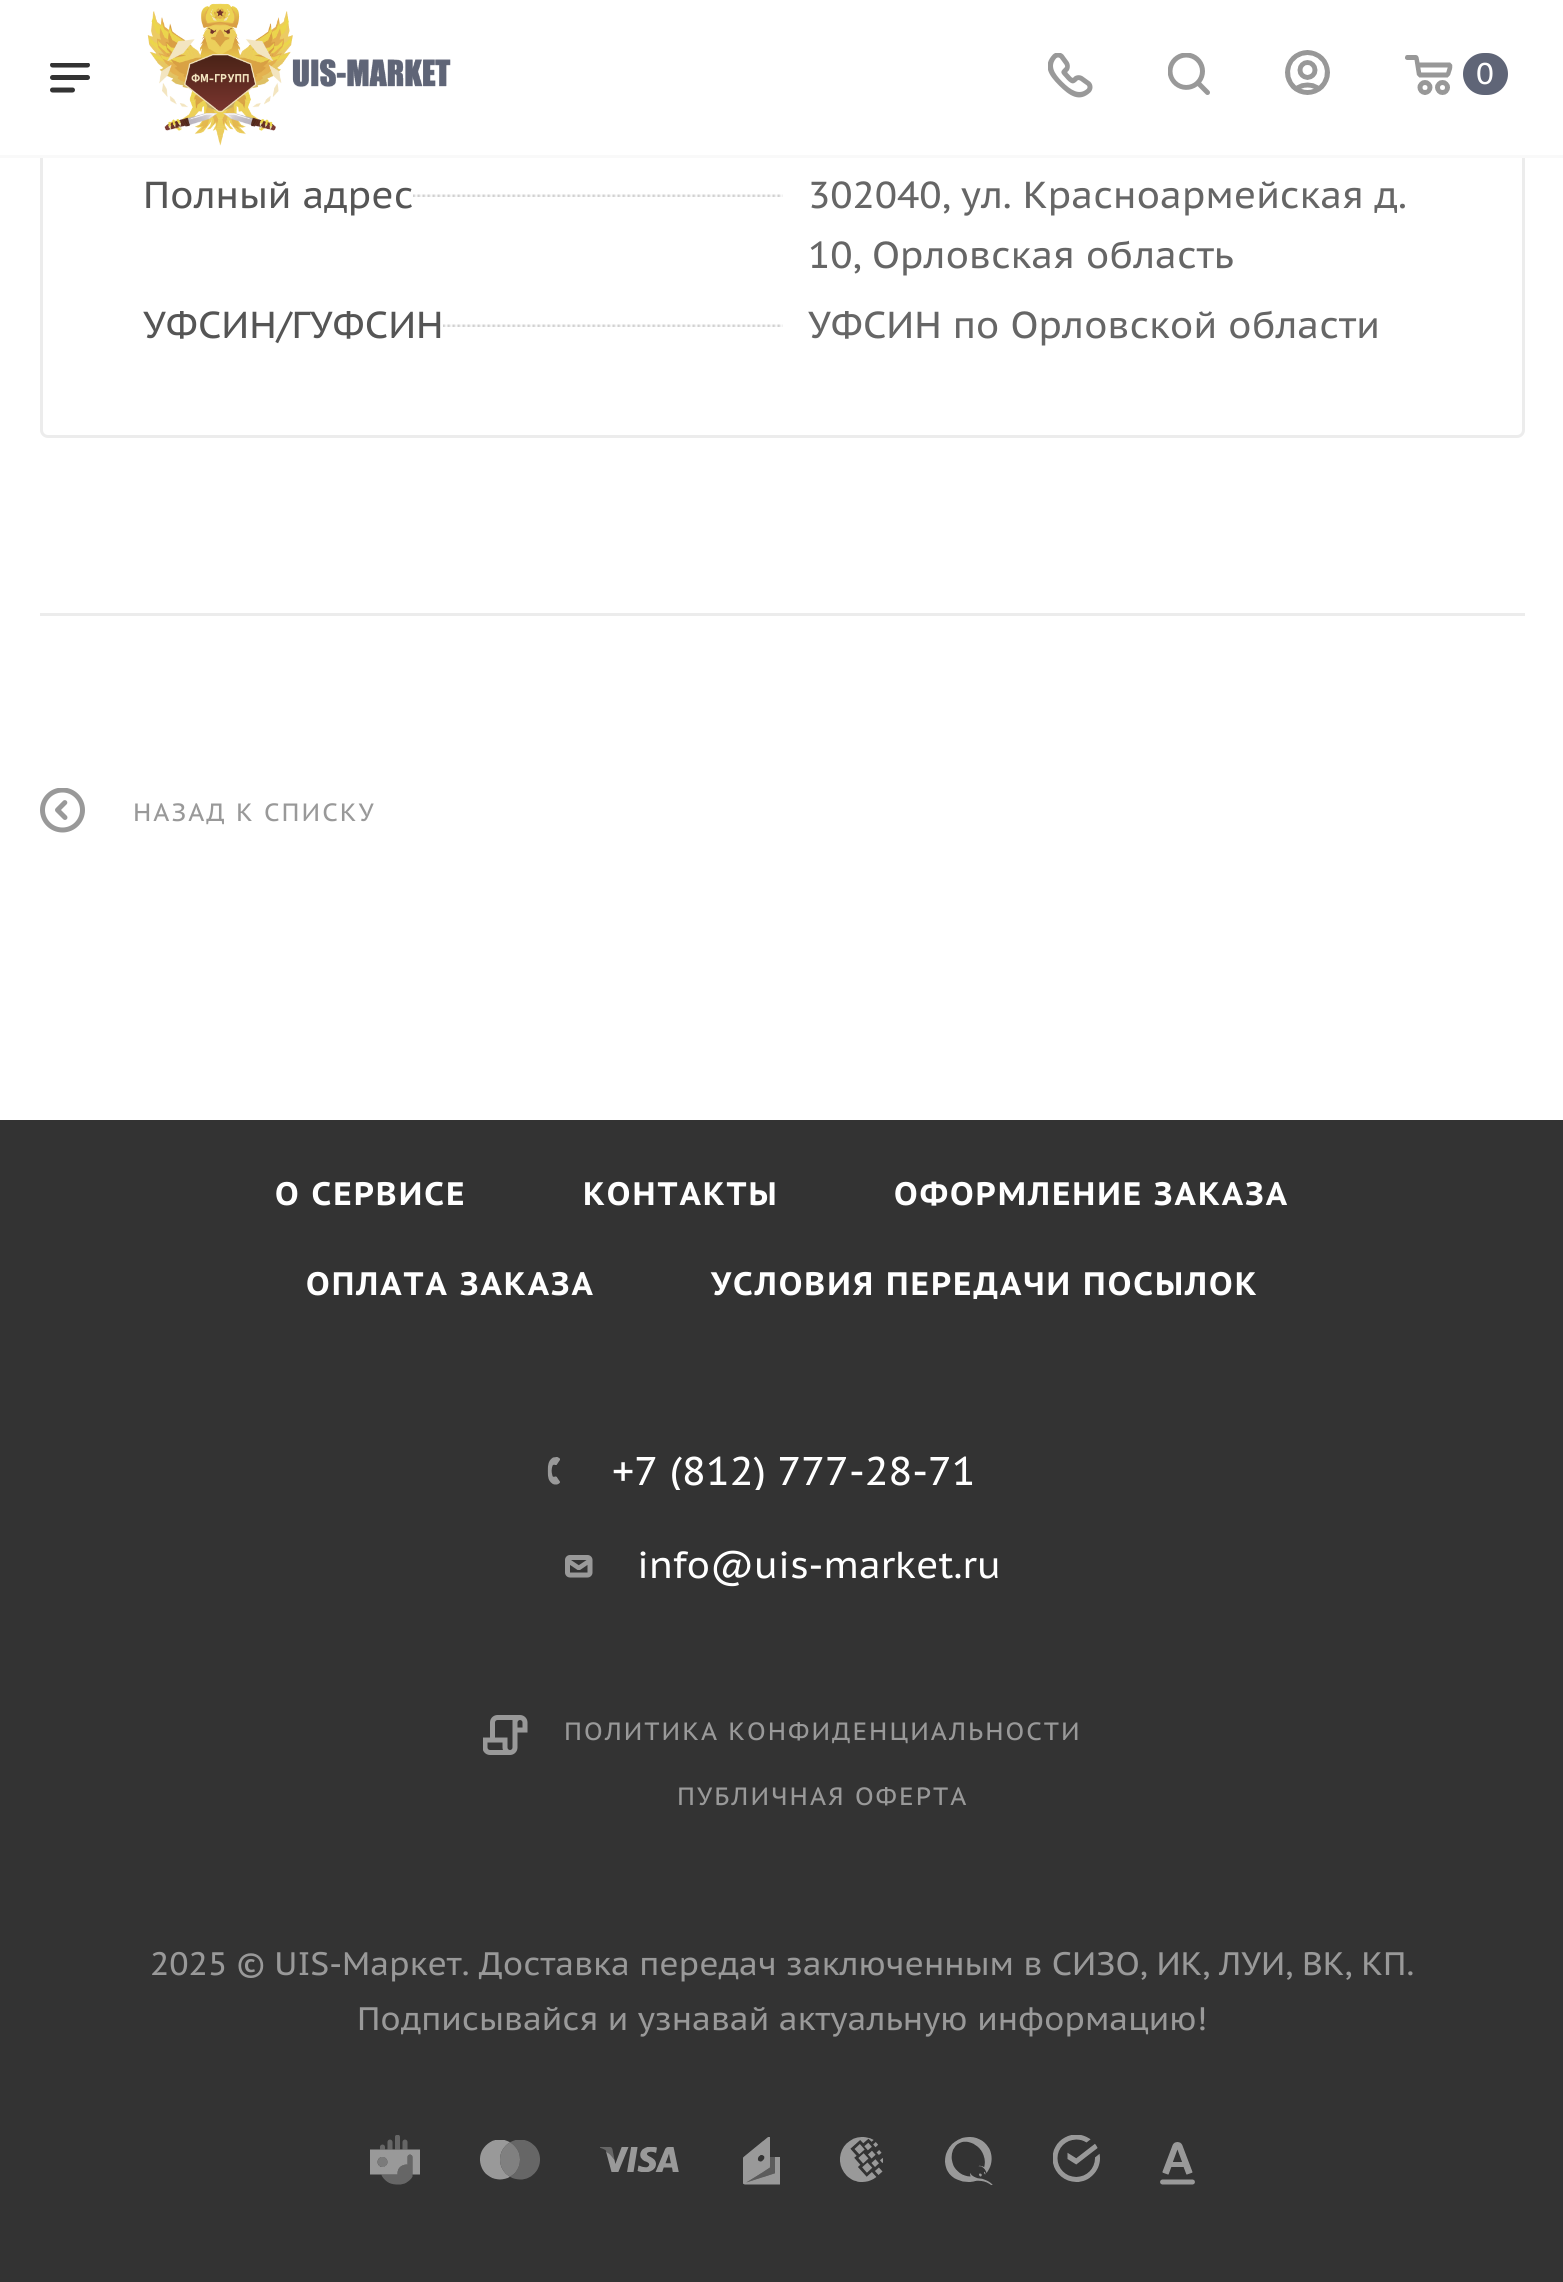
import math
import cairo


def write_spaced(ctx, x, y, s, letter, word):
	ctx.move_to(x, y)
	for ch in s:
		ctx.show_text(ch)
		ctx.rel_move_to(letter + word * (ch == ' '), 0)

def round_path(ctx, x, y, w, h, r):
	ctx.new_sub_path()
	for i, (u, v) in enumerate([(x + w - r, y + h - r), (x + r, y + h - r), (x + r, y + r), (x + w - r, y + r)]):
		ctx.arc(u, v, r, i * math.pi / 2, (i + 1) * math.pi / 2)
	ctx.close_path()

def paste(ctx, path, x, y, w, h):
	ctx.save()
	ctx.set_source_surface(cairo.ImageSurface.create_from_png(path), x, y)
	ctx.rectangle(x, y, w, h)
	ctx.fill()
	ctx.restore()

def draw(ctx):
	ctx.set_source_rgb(1, 1, 1)
	ctx.paint()
	round_path(ctx, 41.5, -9.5, 1482, 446, 6.5)
	ctx.set_source_rgb(0.925, 0.925, 0.925)
	ctx.set_line_width(3)
	ctx.stroke()
	ctx.set_source_rgb(1, 1, 1)
	ctx.rectangle(40, 0, 1485, 155)
	ctx.fill()
	ctx.set_source_rgb(0.973, 0.973, 0.973)
	ctx.rectangle(0, 155, 1563, 3)
	ctx.fill()
	paste(ctx, 'media/1.png', 50, 63, 40, 30)
	paste(ctx, 'media/2.png', 147, 3, 304, 143)
	paste(ctx, 'media/3.png', 1048, 53, 45, 45)
	paste(ctx, 'media/4.png', 1168, 53, 42, 42)
	paste(ctx, 'media/5.png', 1285, 50, 45, 45)
	paste(ctx, 'media/6.png', 1405, 55, 48, 40)
	ctx.set_source_rgb(0.373, 0.396, 0.467)
	round_path(ctx, 1463, 53, 45, 42, 21)
	ctx.fill()
	ctx.select_font_face('PT Sans Caption')
	ctx.set_font_size(30)
	ctx.set_source_rgb(1, 1, 1)
	ctx.move_to(1476, 84)
	ctx.show_text('0')
	paste(ctx, 'media/7.png', 413, 194, 370, 3)
	ctx.set_font_size(37.5)
	ctx.set_source_rgb(0.333, 0.333, 0.333)
	ctx.move_to(143, 208)
	ctx.show_text('Полный адрес')
	ctx.set_source_rgb(0.4, 0.4, 0.4)
	ctx.move_to(808, 208)
	ctx.show_text('302040, ул. Красноармейская д.')
	ctx.move_to(808, 268)
	ctx.show_text('10, Орловская область')
	paste(ctx, 'media/8.png', 443, 324, 340, 3)
	ctx.set_source_rgb(0.333, 0.333, 0.333)
	ctx.move_to(143, 338)
	ctx.show_text('УФСИН/ГУФСИН')
	ctx.set_source_rgb(0.4, 0.4, 0.4)
	ctx.move_to(808, 338)
	ctx.show_text('УФСИН по Орловской области')
	ctx.set_source_rgb(0.925, 0.925, 0.925)
	ctx.rectangle(40, 613, 1485, 3)
	ctx.fill()
	paste(ctx, 'media/9.png', 40, 788, 45, 45)
	ctx.set_font_size(25)
	ctx.set_source_rgb(0.6, 0.6, 0.6)
	write_spaced(ctx, 133, 821, 'НАЗАД К СПИСКУ', 2, 0)
	ctx.set_source_rgb(0.2, 0.2, 0.2)
	ctx.rectangle(0, 1120, 1563, 1162)
	ctx.fill()
	ctx.select_font_face('PT Sans Caption', cairo.FONT_SLANT_NORMAL, cairo.FONT_WEIGHT_BOLD)
	ctx.set_font_size(32.5)
	ctx.set_source_rgb(1, 1, 1)
	for x, y, s in [
		(275, 1205, 'О СЕРВИСЕ'),
		(583, 1205, 'КОНТАКТЫ'),
		(894, 1205, 'ОФОРМЛЕНИЕ ЗАКАЗА'),
		(306, 1295, 'ОПЛАТА ЗАКАЗА'),
		(711, 1295, 'УСЛОВИЯ ПЕРЕДАЧИ ПОСЫЛОК'),
	]:
		write_spaced(ctx, x, y, s, 2, 0)
	paste(ctx, 'media/10.png', 547, 1457, 13, 28)
	ctx.save()
	ctx.rectangle(540, 1450, 468, 40)
	ctx.clip()
	ctx.select_font_face('PT Sans Caption')
	ctx.set_font_size(40)
	ctx.move_to(612, 1485)
	ctx.show_text('+7 (812) 777-28-71')
	ctx.restore()
	paste(ctx, 'media/11.png', 565, 1555, 28, 23)
	ctx.select_font_face('PT Sans Caption')
	ctx.set_font_size(37.5)
	ctx.move_to(637, 1578)
	ctx.show_text('info@uis-market.ru')
	paste(ctx, 'media/12.png', 483, 1715, 45, 40)
	ctx.set_font_size(25)
	ctx.set_source_rgb(0.6, 0.6, 0.6)
	write_spaced(ctx, 564, 1740, 'ПОЛИТИКА КОНФИДЕНЦИАЛЬНОСТИ', 2, 0)
	write_spaced(ctx, 677, 1805, 'ПУБЛИЧНАЯ ОФЕРТА', 2, 0)
	ctx.set_font_size(32.5)
	ctx.move_to(150, 1975)
	ctx.show_text('2025 © UIS-Маркет. Доставка передач заключенным в СИЗО, ИК, ЛУИ, ВК, КП.')
	ctx.move_to(357, 2030)
	ctx.show_text('Подписывайся и узнавай актуальную информацию!')
	paste(ctx, 'media/13.png', 370, 2135, 50, 50)
	paste(ctx, 'media/14.png', 480, 2140, 60, 40)
	paste(ctx, 'media/15.png', 600, 2147, 79, 25)
	paste(ctx, 'media/16.png', 743, 2137, 37, 48)
	paste(ctx, 'media/17.png', 840, 2137, 43, 45)
	paste(ctx, 'media/18.png', 945, 2137, 48, 48)
	paste(ctx, 'media/19.png', 1053, 2135, 47, 47)
	paste(ctx, 'media/20.png', 1160, 2142, 35, 43)


surface = cairo.ImageSurface(cairo.FORMAT_RGB24, 1563, 2282)
ctx = cairo.Context(surface)
options = cairo.FontOptions()
options.set_hint_metrics(cairo.HINT_METRICS_OFF)
options.set_hint_style(cairo.HINT_STYLE_NONE)
ctx.set_font_options(options)
ctx.set_miter_limit(4)
draw(ctx)
surface.write_to_png('image.png')
